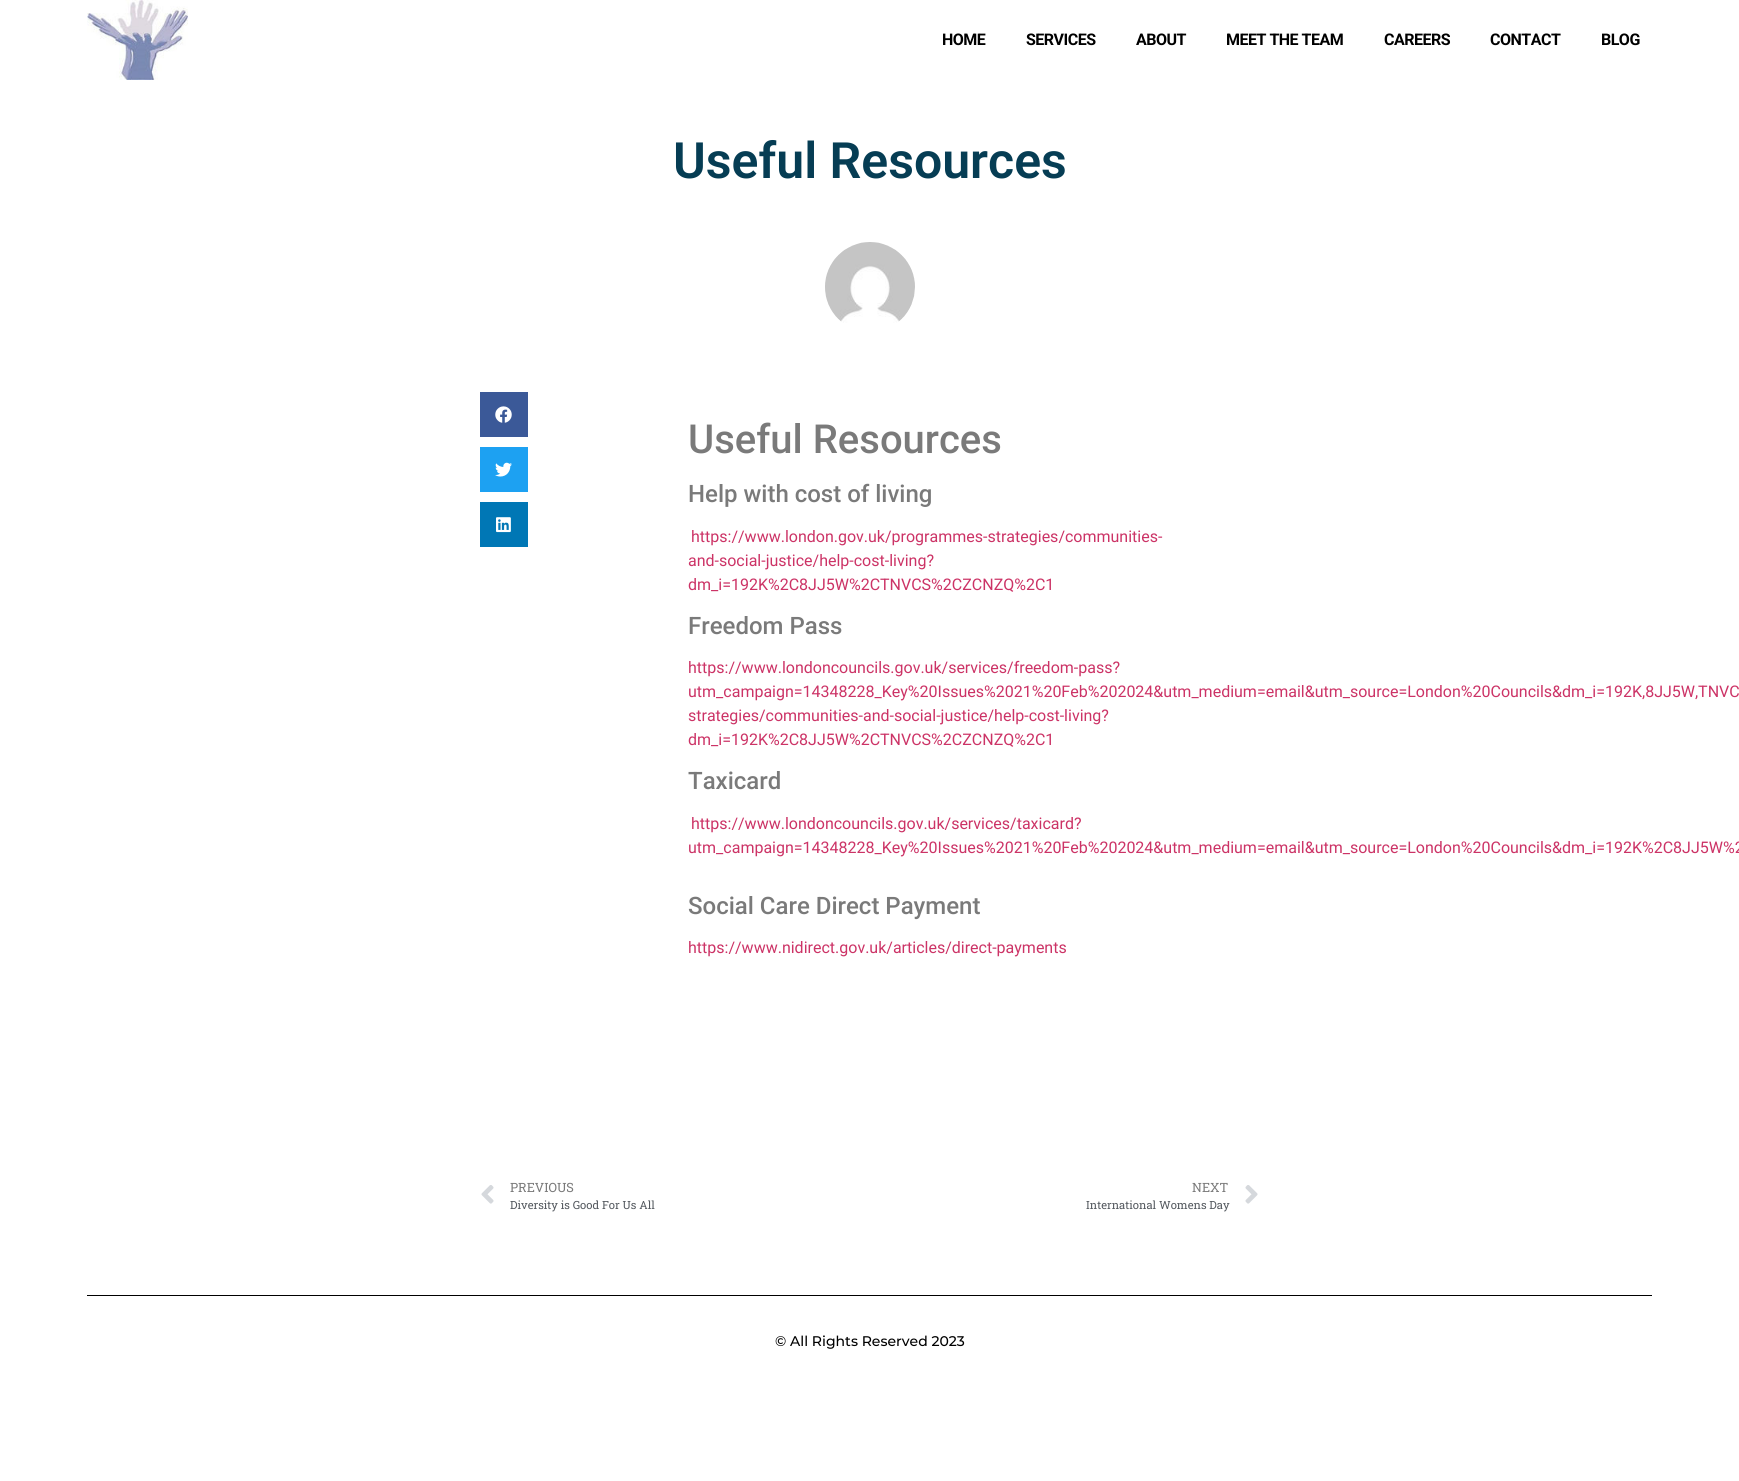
import math
import cairo


def write_spaced(ctx, x, y, s, letter, word):
	ctx.move_to(x, y)
	for ch in s:
		ctx.show_text(ch)
		ctx.rel_move_to(letter + word * (ch == ' '), 0)

def paste(ctx, path, x, y, w, h):
	ctx.save()
	ctx.set_source_surface(cairo.ImageSurface.create_from_png(path), x, y)
	ctx.rectangle(x, y, w, h)
	ctx.fill()
	ctx.restore()

def draw(ctx):
	ctx.set_source_rgb(1, 1, 1)
	ctx.paint()
	paste(ctx, 'media/1.png', 87, 0, 101, 80)
	ctx.select_font_face('Roboto', cairo.FONT_SLANT_NORMAL, cairo.FONT_WEIGHT_BOLD)
	ctx.set_font_size(16)
	ctx.set_source_rgb(0, 0, 0)
	for x, y, s in [
		(942, 45, 'HOME'),
		(1026, 45, 'SERVICES'),
		(1136, 45, 'ABOUT'),
		(1226, 45, 'MEET THE TEAM'),
		(1384, 45, 'CAREERS'),
		(1490, 45, 'CONTACT'),
		(1601, 45, 'BLOG'),
	]:
		write_spaced(ctx, x, y, s, -0.5, 0)
	ctx.select_font_face('Roboto SemiBold')
	ctx.set_font_size(50)
	ctx.set_source_rgb(0.024, 0.239, 0.329)
	ctx.move_to(673, 178)
	ctx.show_text('Useful Resources')
	paste(ctx, 'media/2.png', 825, 242, 90, 81)
	ctx.set_source_rgb(0.231, 0.349, 0.596)
	ctx.rectangle(480, 392, 48, 45)
	ctx.fill()
	paste(ctx, 'media/3.png', 495, 406, 17, 17)
	ctx.set_source_rgb(0.114, 0.631, 0.949)
	ctx.rectangle(480, 447, 48, 45)
	ctx.fill()
	paste(ctx, 'media/4.png', 495, 462, 17, 15)
	ctx.set_source_rgb(0, 0.467, 0.71)
	ctx.rectangle(480, 502, 48, 45)
	ctx.fill()
	paste(ctx, 'media/5.png', 496, 517, 15, 16)
	ctx.select_font_face('Roboto Medium')
	ctx.set_font_size(40)
	ctx.set_source_rgb(0.478, 0.478, 0.478)
	ctx.move_to(688, 453)
	ctx.show_text('Useful Resources')
	ctx.set_font_size(24)
	ctx.move_to(688, 502)
	ctx.show_text('Help with cost of living')
	ctx.select_font_face('Roboto')
	ctx.set_font_size(16)
	ctx.set_source_rgb(0.8, 0.2, 0.4)
	for x, y, s in [
		(691, 542, 'https://www.london.gov.uk/programmes-strategies/communities-'),
		(688, 566, 'and-social-justice/help-cost-living?'),
		(688, 590, 'dm_i=192K%2C8JJ5W%2CTNVCS%2CZCNZQ%2C1'),
	]:
		ctx.move_to(x, y)
		ctx.show_text(s)
	ctx.select_font_face('Roboto Medium')
	ctx.set_font_size(24)
	ctx.set_source_rgb(0.478, 0.478, 0.478)
	ctx.move_to(688, 634)
	ctx.show_text('Freedom Pass')
	ctx.select_font_face('Roboto')
	ctx.set_font_size(16)
	ctx.set_source_rgb(0.8, 0.2, 0.4)
	for x, y, s in [
		(688, 673, 'https://www.londoncouncils.gov.uk/services/freedom-pass?'),
		(688, 697, 'utm_campaign=14348228_Key%20Issues%2021%20Feb%202024&utm_medium=email&utm_source=London%20Councils&dm_i=192K,8JJ5W,TNVC'),
		(688, 721, 'strategies/communities-and-social-justice/help-cost-living?'),
		(688, 745, 'dm_i=192K%2C8JJ5W%2CTNVCS%2CZCNZQ%2C1'),
	]:
		ctx.move_to(x, y)
		ctx.show_text(s)
	ctx.select_font_face('Roboto Medium')
	ctx.set_font_size(24)
	ctx.set_source_rgb(0.478, 0.478, 0.478)
	ctx.move_to(688, 789)
	ctx.show_text('Taxicard')
	ctx.select_font_face('Roboto')
	ctx.set_font_size(16)
	ctx.set_source_rgb(0.8, 0.2, 0.4)
	ctx.move_to(691, 829)
	ctx.show_text('https://www.londoncouncils.gov.uk/services/taxicard?')
	ctx.move_to(688, 853)
	ctx.show_text('utm_campaign=14348228_Key%20Issues%2021%20Feb%202024&utm_medium=email&utm_source=London%20Councils&dm_i=192K%2C8JJ5W%2')
	ctx.select_font_face('Roboto Medium')
	ctx.set_font_size(24)
	ctx.set_source_rgb(0.478, 0.478, 0.478)
	ctx.move_to(688, 914)
	ctx.show_text('Social Care Direct Payment')
	ctx.select_font_face('Roboto')
	ctx.set_font_size(16)
	ctx.set_source_rgb(0.8, 0.2, 0.4)
	ctx.move_to(688, 953)
	ctx.show_text('https://www.nidirect.gov.uk/articles/direct-payments')
	paste(ctx, 'media/6.png', 481, 1185, 13, 19)
	ctx.select_font_face('Roboto Slab')
	ctx.set_font_size(12.75)
	ctx.set_source_rgb(0.478, 0.478, 0.478)
	ctx.move_to(510, 1192)
	ctx.show_text('PREVIOUS')
	ctx.set_font_size(11.25)
	ctx.set_source_rgb(0.329, 0.349, 0.373)
	ctx.move_to(510, 1209)
	ctx.show_text('Diversity is Good For Us All')
	ctx.set_font_size(12.75)
	ctx.set_source_rgb(0.478, 0.478, 0.478)
	ctx.move_to(1192, 1192)
	ctx.show_text('NEXT')
	ctx.set_font_size(11.25)
	ctx.set_source_rgb(0.329, 0.349, 0.373)
	ctx.move_to(1086, 1209)
	ctx.show_text('International Womens Day')
	paste(ctx, 'media/7.png', 1245, 1185, 13, 19)
	ctx.set_source_rgb(0, 0, 0)
	ctx.rectangle(87, 1295, 1565, 1)
	ctx.fill()
	ctx.select_font_face('Montserrat Medium')
	ctx.set_font_size(14)
	ctx.move_to(775, 1346)
	ctx.show_text('© All Rights Reserved 2023')


surface = cairo.ImageSurface(cairo.FORMAT_RGB24, 1739, 1481)
ctx = cairo.Context(surface)
options = cairo.FontOptions()
options.set_hint_metrics(cairo.HINT_METRICS_OFF)
options.set_hint_style(cairo.HINT_STYLE_NONE)
ctx.set_font_options(options)
ctx.set_miter_limit(4)
draw(ctx)
surface.write_to_png('image.png')
